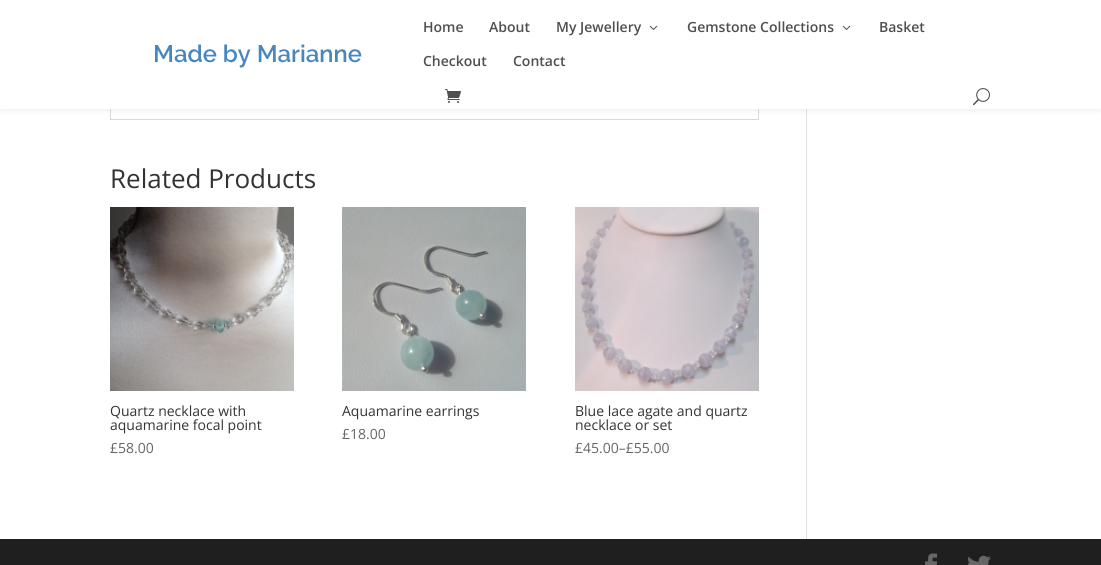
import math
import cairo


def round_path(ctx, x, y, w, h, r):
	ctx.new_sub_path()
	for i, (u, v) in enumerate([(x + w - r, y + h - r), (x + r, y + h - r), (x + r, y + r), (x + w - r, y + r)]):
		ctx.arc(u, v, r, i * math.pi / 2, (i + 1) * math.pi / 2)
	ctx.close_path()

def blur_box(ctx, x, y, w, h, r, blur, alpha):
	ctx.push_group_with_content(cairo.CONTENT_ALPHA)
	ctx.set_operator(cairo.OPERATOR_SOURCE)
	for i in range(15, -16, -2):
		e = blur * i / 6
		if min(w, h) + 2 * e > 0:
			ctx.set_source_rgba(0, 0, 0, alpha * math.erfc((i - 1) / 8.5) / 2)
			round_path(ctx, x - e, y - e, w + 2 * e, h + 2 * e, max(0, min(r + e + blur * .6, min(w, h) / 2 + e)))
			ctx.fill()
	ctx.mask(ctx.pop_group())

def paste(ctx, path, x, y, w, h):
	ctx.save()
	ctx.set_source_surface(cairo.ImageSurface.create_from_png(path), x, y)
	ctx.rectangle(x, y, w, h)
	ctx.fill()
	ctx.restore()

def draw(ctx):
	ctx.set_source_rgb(1, 1, 1)
	ctx.paint()
	ctx.rectangle(110.5, -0.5, 648, 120)
	ctx.set_source_rgb(0.851, 0.851, 0.851)
	ctx.set_line_width(1)
	ctx.stroke()
	ctx.set_source_rgb(0.886, 0.886, 0.886)
	ctx.rectangle(806, 109, 1, 430)
	ctx.fill()
	ctx.set_source_rgb(0, 0, 0)
	blur_box(ctx, 0, 0, 1101, 109, 0, 3.5, 0.1)
	ctx.set_source_rgb(1, 1, 1)
	ctx.rectangle(0, 0, 1101, 109)
	ctx.fill()
	paste(ctx, 'media/1.png', 155, 44, 207, 24)
	ctx.select_font_face('Open Sans SemiBold')
	ctx.set_font_size(14)
	ctx.set_source_rgb(0.31, 0.31, 0.31)
	for x, y, s in [
		(423, 32, 'Home'),
		(489, 32, 'About'),
		(556, 32, 'My Jewellery'),
	]:
		ctx.move_to(x, y)
		ctx.show_text(s)
	paste(ctx, 'media/2.png', 649, 25, 9, 5)
	ctx.move_to(687, 32)
	ctx.show_text('Gemstone Collections')
	paste(ctx, 'media/2.png', 842, 25, 9, 5)
	for x, y, s in [
		(879, 32, 'Basket'),
		(423, 66, 'Checkout'),
		(513, 66, 'Contact'),
	]:
		ctx.move_to(x, y)
		ctx.show_text(s)
	paste(ctx, 'media/3.png', 445, 89, 16, 14)
	paste(ctx, 'media/4.png', 973, 88, 17, 18)
	ctx.select_font_face('Open Sans')
	ctx.set_font_size(26)
	ctx.set_source_rgb(0.2, 0.2, 0.2)
	ctx.move_to(110, 188)
	ctx.show_text('Related Products')
	paste(ctx, 'media/5.png', 110, 207, 184, 184)
	ctx.set_font_size(14)
	ctx.move_to(110, 416)
	ctx.show_text('Quartz necklace with')
	ctx.move_to(110, 430)
	ctx.show_text('aquamarine focal point')
	ctx.set_source_rgb(0.4, 0.4, 0.4)
	ctx.move_to(110, 453)
	ctx.show_text('£58.00')
	paste(ctx, 'media/6.png', 342, 207, 184, 184)
	ctx.set_source_rgb(0.2, 0.2, 0.2)
	ctx.move_to(342, 416)
	ctx.show_text('Aquamarine earrings')
	ctx.set_source_rgb(0.4, 0.4, 0.4)
	ctx.move_to(342, 439)
	ctx.show_text('£18.00')
	paste(ctx, 'media/7.png', 575, 207, 184, 184)
	ctx.set_source_rgb(0.2, 0.2, 0.2)
	ctx.move_to(575, 416)
	ctx.show_text('Blue lace agate and quartz')
	ctx.move_to(575, 430)
	ctx.show_text('necklace or set')
	ctx.set_source_rgb(0.4, 0.4, 0.4)
	ctx.move_to(575, 453)
	ctx.show_text('£45.00–£55.00')
	ctx.set_source_rgb(0.122, 0.122, 0.122)
	ctx.rectangle(0, 539, 1101, 26)
	ctx.fill()
	paste(ctx, 'media/8.png', 925, 553, 12, 12)
	paste(ctx, 'media/9.png', 968, 555, 23, 10)


surface = cairo.ImageSurface(cairo.FORMAT_RGB24, 1101, 565)
ctx = cairo.Context(surface)
options = cairo.FontOptions()
options.set_hint_metrics(cairo.HINT_METRICS_OFF)
options.set_hint_style(cairo.HINT_STYLE_NONE)
ctx.set_font_options(options)
ctx.set_miter_limit(4)
draw(ctx)
surface.write_to_png('image.png')
